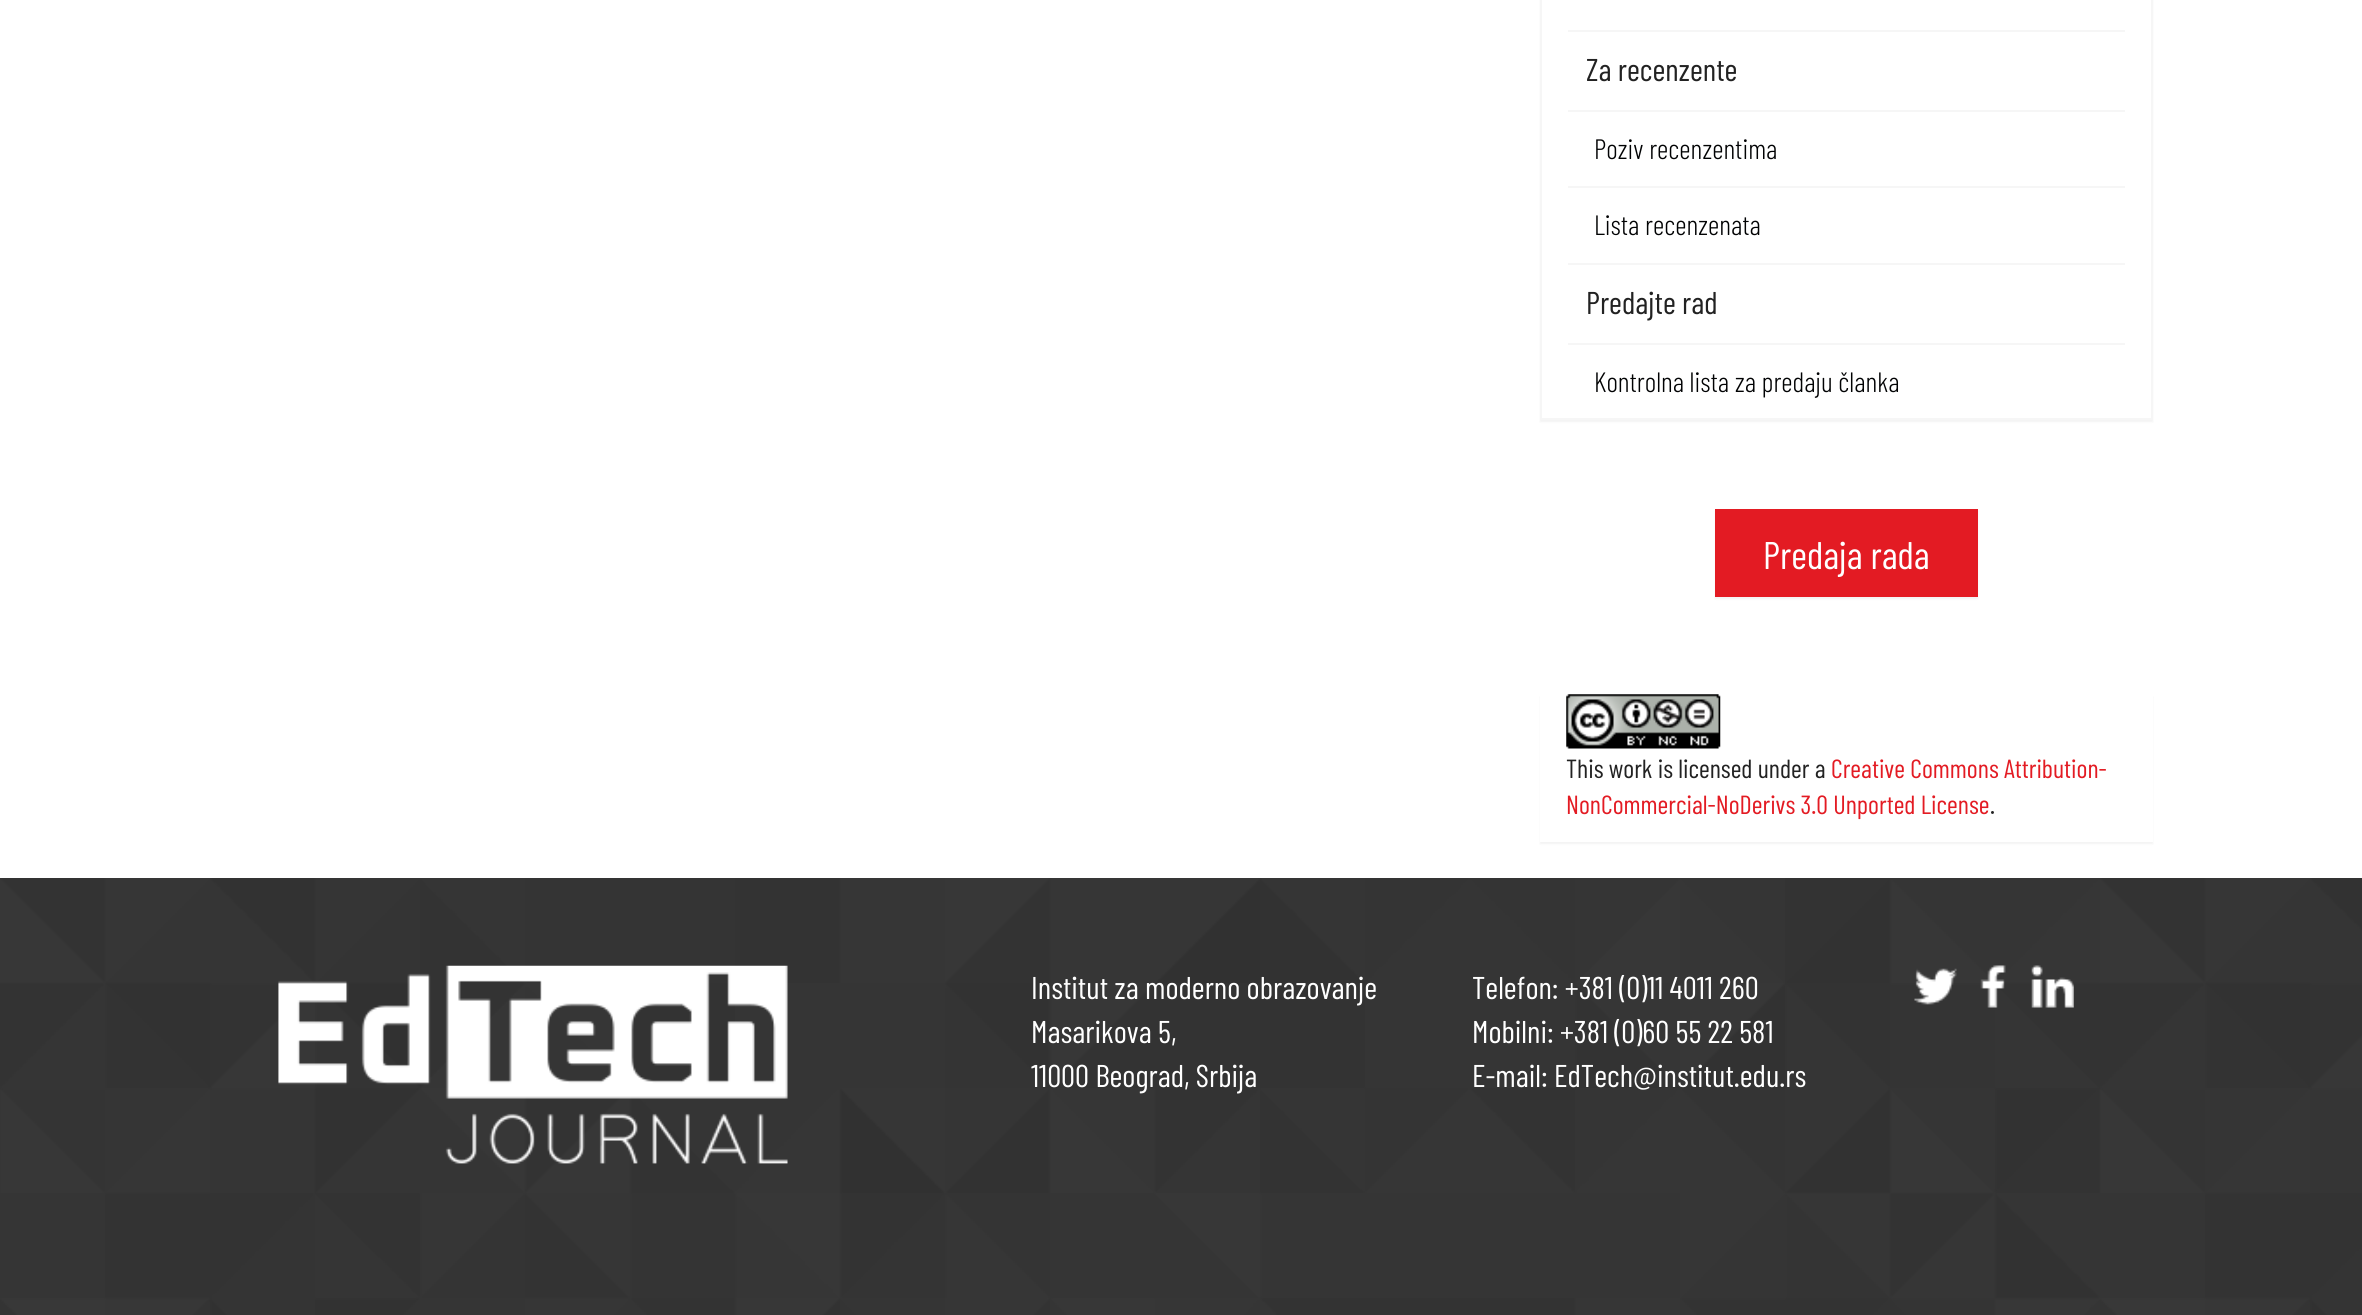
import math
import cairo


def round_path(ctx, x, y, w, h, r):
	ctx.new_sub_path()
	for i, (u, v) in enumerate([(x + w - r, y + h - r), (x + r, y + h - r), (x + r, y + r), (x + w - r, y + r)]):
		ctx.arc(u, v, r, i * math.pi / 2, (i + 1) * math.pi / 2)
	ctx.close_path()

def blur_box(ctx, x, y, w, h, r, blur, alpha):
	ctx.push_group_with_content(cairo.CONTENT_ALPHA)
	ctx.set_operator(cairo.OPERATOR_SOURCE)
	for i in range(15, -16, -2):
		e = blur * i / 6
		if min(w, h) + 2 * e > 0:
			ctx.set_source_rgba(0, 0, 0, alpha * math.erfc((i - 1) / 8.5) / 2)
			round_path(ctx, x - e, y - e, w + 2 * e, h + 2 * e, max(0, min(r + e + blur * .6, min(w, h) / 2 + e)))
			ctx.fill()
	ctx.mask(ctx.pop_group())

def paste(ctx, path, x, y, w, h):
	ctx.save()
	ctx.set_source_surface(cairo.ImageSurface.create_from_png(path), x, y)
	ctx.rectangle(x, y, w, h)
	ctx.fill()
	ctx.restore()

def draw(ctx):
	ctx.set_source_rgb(1, 1, 1)
	ctx.paint()
	ctx.set_source_rgb(0, 0, 0)
	blur_box(ctx, 1540, -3, 613, 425, 0, 1, 0.05)
	ctx.set_source_rgb(1, 1, 1)
	ctx.rectangle(1541, -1, 611, 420)
	ctx.fill_preserve()
	ctx.set_source_rgb(0.961, 0.961, 0.961)
	ctx.stroke()
	ctx.rectangle(1568, 30, 557, 2)
	ctx.fill()
	ctx.select_font_face('Barlow Condensed')
	ctx.set_font_size(31.5)
	ctx.set_source_rgb(0.133, 0.133, 0.133)
	ctx.move_to(1586, 81)
	ctx.show_text('Za recenzente')
	ctx.set_source_rgb(0.961, 0.961, 0.961)
	ctx.rectangle(1568, 110, 557, 2)
	ctx.fill()
	ctx.select_font_face('Barlow Condensed Light')
	ctx.set_font_size(28)
	ctx.set_source_rgb(0.004, 0.008, 0.012)
	ctx.move_to(1594, 159)
	ctx.show_text('Poziv recenzentima')
	ctx.set_source_rgb(0.961, 0.961, 0.961)
	ctx.rectangle(1568, 186, 557, 2)
	ctx.fill()
	ctx.rectangle(1568, 263, 557, 2)
	ctx.fill()
	ctx.set_source_rgb(0.004, 0.008, 0.012)
	ctx.move_to(1594, 235)
	ctx.show_text('Lista recenzenata')
	ctx.select_font_face('Barlow Condensed')
	ctx.set_font_size(31.5)
	ctx.set_source_rgb(0.133, 0.133, 0.133)
	ctx.move_to(1586, 314)
	ctx.show_text('Predajte rad')
	ctx.set_source_rgb(0.961, 0.961, 0.961)
	ctx.rectangle(1568, 343, 557, 2)
	ctx.fill()
	ctx.select_font_face('Barlow Condensed Light')
	ctx.set_font_size(28)
	ctx.set_source_rgb(0.004, 0.008, 0.012)
	ctx.move_to(1594, 392)
	ctx.show_text('Kontrolna lista za predaju članka')
	ctx.set_source_rgb(0, 0, 0)
	blur_box(ctx, 1715, 511, 263, 88, 0, 1, 0.05)
	ctx.set_source_rgb(0.89, 0.106, 0.137)
	ctx.rectangle(1715, 509, 263, 88)
	ctx.fill()
	ctx.select_font_face('Barlow Condensed')
	ctx.set_font_size(38.5)
	ctx.set_source_rgb(1, 1, 1)
	ctx.move_to(1763, 569)
	ctx.show_text('Predaja rada')
	ctx.set_source_rgb(0, 0, 0)
	blur_box(ctx, 1540, 697, 613, 147, 0, 1, 0.05)
	ctx.set_source_rgb(1, 1, 1)
	ctx.rectangle(1540, 696, 613, 146)
	ctx.fill()
	paste(ctx, 'media/1.png', 1566, 694, 155, 55)
	ctx.set_font_size(26.25)
	ctx.set_source_rgb(0.133, 0.133, 0.133)
	ctx.move_to(1566, 778)
	ctx.show_text('This work is licensed under a')
	ctx.set_source_rgb(0.89, 0.106, 0.137)
	ctx.move_to(1831, 778)
	ctx.show_text('Creative Commons Attribution-')
	ctx.move_to(1566, 814)
	ctx.show_text('NonCommercial-NoDerivs 3.0 Unported License')
	ctx.set_source_rgb(0.133, 0.133, 0.133)
	ctx.move_to(1990, 814)
	ctx.show_text('.')
	paste(ctx, 'media/2.png', 0, 878, 2362, 437)
	paste(ctx, 'media/3.png', 278, 965, 510, 199)
	ctx.set_font_size(31.5)
	ctx.set_source_rgb(1, 1, 1)
	for x, y, s in [
		(1031, 999, 'Institut za moderno obrazovanje'),
		(1031, 1043, 'Masarikova 5,'),
		(1031, 1087, '11000 Beograd, Srbija'),
		(1472, 999, 'Telefon: +381 (0)11 4011 260'),
		(1472, 1043, 'Mobilni: +381 (0)60 55 22 581'),
		(1472, 1087, 'E-mail: EdTech@institut.edu.rs'),
	]:
		ctx.move_to(x, y)
		ctx.show_text(s)
	paste(ctx, 'media/4.png', 1914, 968, 43, 37)
	paste(ctx, 'media/5.png', 1980, 965, 26, 43)
	paste(ctx, 'media/6.png', 2031, 965, 43, 43)


surface = cairo.ImageSurface(cairo.FORMAT_RGB24, 2362, 1315)
ctx = cairo.Context(surface)
options = cairo.FontOptions()
options.set_hint_metrics(cairo.HINT_METRICS_OFF)
options.set_hint_style(cairo.HINT_STYLE_NONE)
ctx.set_font_options(options)
ctx.set_miter_limit(4)
draw(ctx)
surface.write_to_png('image.png')
